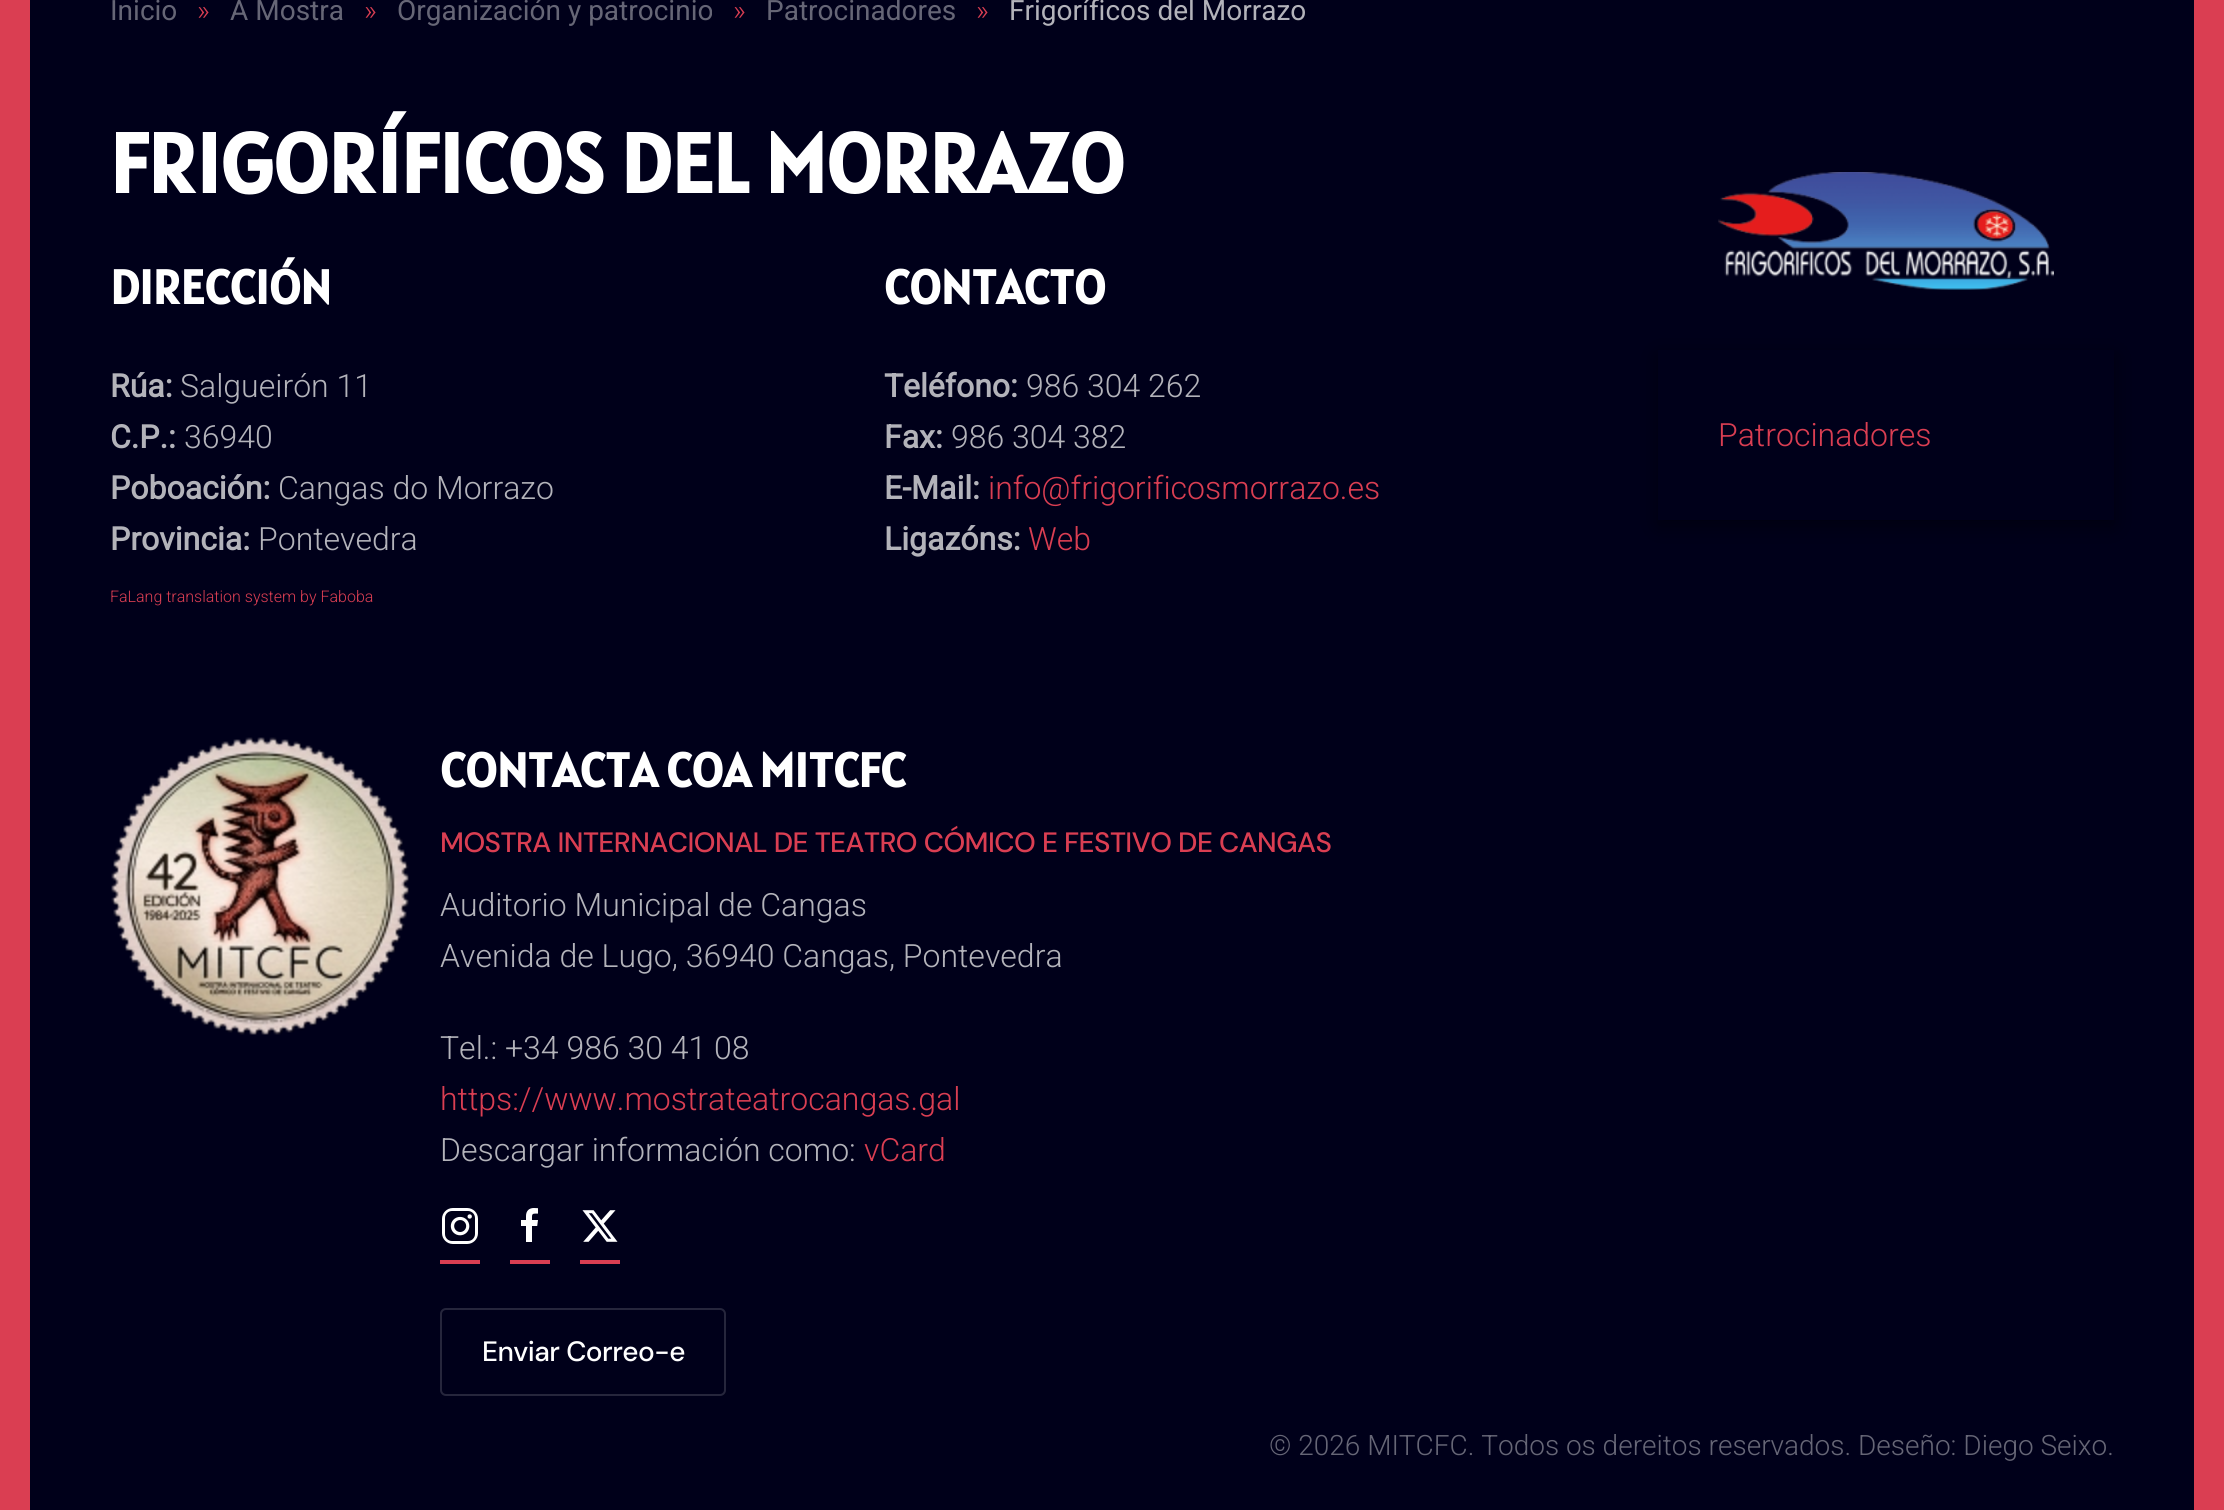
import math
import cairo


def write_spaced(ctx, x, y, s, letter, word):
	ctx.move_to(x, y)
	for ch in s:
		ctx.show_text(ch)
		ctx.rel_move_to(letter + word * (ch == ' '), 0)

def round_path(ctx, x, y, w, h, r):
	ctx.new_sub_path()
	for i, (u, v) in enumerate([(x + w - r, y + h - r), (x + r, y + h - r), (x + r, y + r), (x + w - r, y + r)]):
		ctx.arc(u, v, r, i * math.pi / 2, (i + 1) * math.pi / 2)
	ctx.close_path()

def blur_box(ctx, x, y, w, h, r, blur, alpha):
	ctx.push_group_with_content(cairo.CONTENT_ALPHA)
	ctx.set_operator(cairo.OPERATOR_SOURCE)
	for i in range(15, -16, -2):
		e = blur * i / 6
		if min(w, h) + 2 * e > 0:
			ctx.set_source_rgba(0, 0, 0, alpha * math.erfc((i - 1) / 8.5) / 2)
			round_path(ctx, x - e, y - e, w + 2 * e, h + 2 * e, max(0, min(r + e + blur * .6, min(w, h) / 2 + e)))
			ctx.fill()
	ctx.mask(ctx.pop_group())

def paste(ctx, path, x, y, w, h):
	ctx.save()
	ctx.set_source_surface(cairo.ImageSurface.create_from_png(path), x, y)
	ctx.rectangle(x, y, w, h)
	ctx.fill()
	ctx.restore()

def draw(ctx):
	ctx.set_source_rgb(0, 0, 0.102)
	ctx.paint()
	ctx.set_source_rgb(0.855, 0.243, 0.322)
	ctx.rectangle(2194, 0, 30, 1510)
	ctx.fill()
	ctx.rectangle(0, 0, 30, 1510)
	ctx.fill()
	ctx.select_font_face('Roboto')
	ctx.set_font_size(28)
	ctx.set_source_rgb(0.4, 0.4, 0.463)
	ctx.move_to(110, 20)
	ctx.show_text('Inicio')
	ctx.select_font_face('Roboto Light')
	ctx.set_source_rgb(0.855, 0.243, 0.322)
	ctx.move_to(197, 20)
	ctx.show_text('»')
	ctx.select_font_face('Roboto')
	ctx.set_source_rgb(0.4, 0.4, 0.463)
	ctx.move_to(230, 20)
	ctx.show_text('A Mostra')
	ctx.select_font_face('Roboto Light')
	ctx.set_source_rgb(0.855, 0.243, 0.322)
	ctx.move_to(364, 20)
	ctx.show_text('»')
	ctx.select_font_face('Roboto')
	ctx.set_source_rgb(0.4, 0.4, 0.463)
	ctx.move_to(397, 20)
	ctx.show_text('Organización y patrocinio')
	ctx.select_font_face('Roboto Light')
	ctx.set_source_rgb(0.855, 0.243, 0.322)
	ctx.move_to(733, 20)
	ctx.show_text('»')
	ctx.select_font_face('Roboto')
	ctx.set_source_rgb(0.4, 0.4, 0.463)
	ctx.move_to(766, 20)
	ctx.show_text('Patrocinadores')
	ctx.select_font_face('Roboto Light')
	ctx.set_source_rgb(0.855, 0.243, 0.322)
	ctx.move_to(976, 20)
	ctx.show_text('»')
	ctx.select_font_face('Roboto')
	ctx.set_source_rgb(0.702, 0.702, 0.729)
	ctx.move_to(1009, 20)
	ctx.show_text('Frigoríficos del Morrazo')
	ctx.select_font_face('Alatsi', cairo.FONT_SLANT_NORMAL, cairo.FONT_WEIGHT_BOLD)
	ctx.set_font_size(84)
	ctx.set_source_rgb(1, 1, 1)
	ctx.move_to(110, 193)
	ctx.show_text('FRIGORÍFICOS DEL MORRAZO')
	ctx.set_font_size(48)
	ctx.move_to(110, 304)
	ctx.show_text('DIRECCIÓN')
	ctx.select_font_face('Roboto', cairo.FONT_SLANT_NORMAL, cairo.FONT_WEIGHT_BOLD)
	ctx.set_font_size(32)
	ctx.set_source_rgb(0.702, 0.702, 0.729)
	ctx.move_to(110, 397)
	ctx.show_text('Rúa:')
	ctx.select_font_face('Roboto Light')
	ctx.move_to(180, 397)
	ctx.show_text('Salgueirón 11')
	ctx.select_font_face('Roboto', cairo.FONT_SLANT_NORMAL, cairo.FONT_WEIGHT_BOLD)
	ctx.move_to(110, 448)
	ctx.show_text('C.P.:')
	ctx.select_font_face('Roboto Light')
	ctx.move_to(184, 448)
	ctx.show_text('36940')
	ctx.select_font_face('Roboto', cairo.FONT_SLANT_NORMAL, cairo.FONT_WEIGHT_BOLD)
	ctx.move_to(110, 499)
	ctx.show_text('Poboación:')
	ctx.select_font_face('Roboto Light')
	ctx.move_to(278, 499)
	ctx.show_text('Cangas do Morrazo')
	ctx.select_font_face('Roboto', cairo.FONT_SLANT_NORMAL, cairo.FONT_WEIGHT_BOLD)
	ctx.move_to(110, 550)
	ctx.show_text('Provincia:')
	ctx.select_font_face('Roboto Light')
	ctx.move_to(258, 550)
	ctx.show_text('Pontevedra')
	ctx.select_font_face('Alatsi', cairo.FONT_SLANT_NORMAL, cairo.FONT_WEIGHT_BOLD)
	ctx.set_font_size(48)
	ctx.set_source_rgb(1, 1, 1)
	ctx.move_to(884, 304)
	ctx.show_text('CONTACTO')
	ctx.select_font_face('Roboto', cairo.FONT_SLANT_NORMAL, cairo.FONT_WEIGHT_BOLD)
	ctx.set_font_size(32)
	ctx.set_source_rgb(0.702, 0.702, 0.729)
	ctx.move_to(884, 397)
	ctx.show_text('Teléfono:')
	ctx.select_font_face('Roboto Light')
	ctx.move_to(1026, 397)
	ctx.show_text('986 304 262')
	ctx.select_font_face('Roboto', cairo.FONT_SLANT_NORMAL, cairo.FONT_WEIGHT_BOLD)
	ctx.move_to(884, 448)
	ctx.show_text('Fax:')
	ctx.select_font_face('Roboto Light')
	ctx.move_to(951, 448)
	ctx.show_text('986 304 382')
	ctx.select_font_face('Roboto', cairo.FONT_SLANT_NORMAL, cairo.FONT_WEIGHT_BOLD)
	ctx.move_to(884, 499)
	ctx.show_text('E-Mail:')
	ctx.select_font_face('Roboto Light')
	ctx.set_source_rgb(0.855, 0.243, 0.322)
	ctx.move_to(988, 499)
	ctx.show_text('info@frigorificosmorrazo.es')
	ctx.select_font_face('Roboto', cairo.FONT_SLANT_NORMAL, cairo.FONT_WEIGHT_BOLD)
	ctx.set_source_rgb(0.702, 0.702, 0.729)
	ctx.move_to(884, 550)
	ctx.show_text('Ligazóns:')
	ctx.select_font_face('Roboto Light')
	ctx.set_source_rgb(0.855, 0.243, 0.322)
	ctx.move_to(1028, 550)
	ctx.show_text('Web')
	paste(ctx, 'media/1.png', 1718, 172, 336, 118)
	ctx.set_source_rgb(0, 0, 0)
	blur_box(ctx, 1658, 356, 456, 170, 0, 10, 0.45)
	ctx.set_source_rgb(0, 0, 0.102)
	ctx.rectangle(1658, 350, 456, 170)
	ctx.fill()
	ctx.set_source_rgb(0.855, 0.243, 0.322)
	ctx.move_to(1718, 446)
	ctx.show_text('Patrocinadores')
	ctx.set_font_size(16)
	ctx.move_to(110, 602)
	ctx.show_text('FaLang translation system by Faboba')
	paste(ctx, 'media/2.png', 111, 737, 298, 298)
	ctx.select_font_face('Alatsi', cairo.FONT_SLANT_NORMAL, cairo.FONT_WEIGHT_BOLD)
	ctx.set_font_size(48)
	ctx.set_source_rgb(1, 1, 1)
	ctx.move_to(440, 787)
	ctx.show_text('CONTACTA COA MITCFC')
	ctx.select_font_face('DM Sans Medium')
	ctx.set_font_size(28)
	ctx.set_source_rgb(0.855, 0.243, 0.322)
	write_spaced(ctx, 440, 852, 'MOSTRA INTERNACIONAL DE TEATRO CÓMICO E FESTIVO DE CANGAS', -0.55, 0)
	ctx.select_font_face('Roboto Light')
	ctx.set_font_size(32)
	ctx.set_source_rgb(0.702, 0.702, 0.729)
	for x, y, s in [
		(440, 916, 'Auditorio Municipal de Cangas'),
		(440, 967, 'Avenida de Lugo, 36940 Cangas, Pontevedra'),
		(440, 1059, 'Tel.: +34 986 30 41 08'),
	]:
		ctx.move_to(x, y)
		ctx.show_text(s)
	ctx.set_source_rgb(0.855, 0.243, 0.322)
	ctx.move_to(440, 1110)
	ctx.show_text('https://www.mostrateatrocangas.gal')
	ctx.set_source_rgb(0.702, 0.702, 0.729)
	ctx.move_to(440, 1161)
	ctx.show_text('Descargar información como:')
	ctx.set_source_rgb(0.855, 0.243, 0.322)
	ctx.move_to(864, 1161)
	ctx.show_text('vCard')
	ctx.rectangle(440, 1260, 40, 4)
	ctx.fill()
	paste(ctx, 'media/3.png', 442, 1208, 36, 36)
	ctx.rectangle(510, 1260, 40, 4)
	ctx.fill()
	paste(ctx, 'media/4.png', 521, 1208, 17, 34)
	ctx.rectangle(580, 1260, 40, 4)
	ctx.fill()
	paste(ctx, 'media/5.png', 582, 1210, 36, 32)
	round_path(ctx, 441, 1309, 284, 86, 5)
	ctx.set_source_rgb(0.149, 0.149, 0.235)
	ctx.stroke()
	ctx.select_font_face('DM Sans Medium')
	ctx.set_font_size(28)
	ctx.set_source_rgb(1, 1, 1)
	write_spaced(ctx, 482, 1361, 'Enviar Correo-e', -0.55, 0)
	ctx.select_font_face('Roboto Light')
	ctx.set_source_rgb(0.4, 0.4, 0.463)
	ctx.move_to(1269, 1455)
	ctx.show_text('© 2026 MITCFC. Todos os dereitos reservados. Deseño: Diego Seixo.')


surface = cairo.ImageSurface(cairo.FORMAT_RGB24, 2224, 1510)
ctx = cairo.Context(surface)
options = cairo.FontOptions()
options.set_hint_metrics(cairo.HINT_METRICS_OFF)
options.set_hint_style(cairo.HINT_STYLE_NONE)
ctx.set_font_options(options)
ctx.set_miter_limit(4)
draw(ctx)
surface.write_to_png('image.png')
